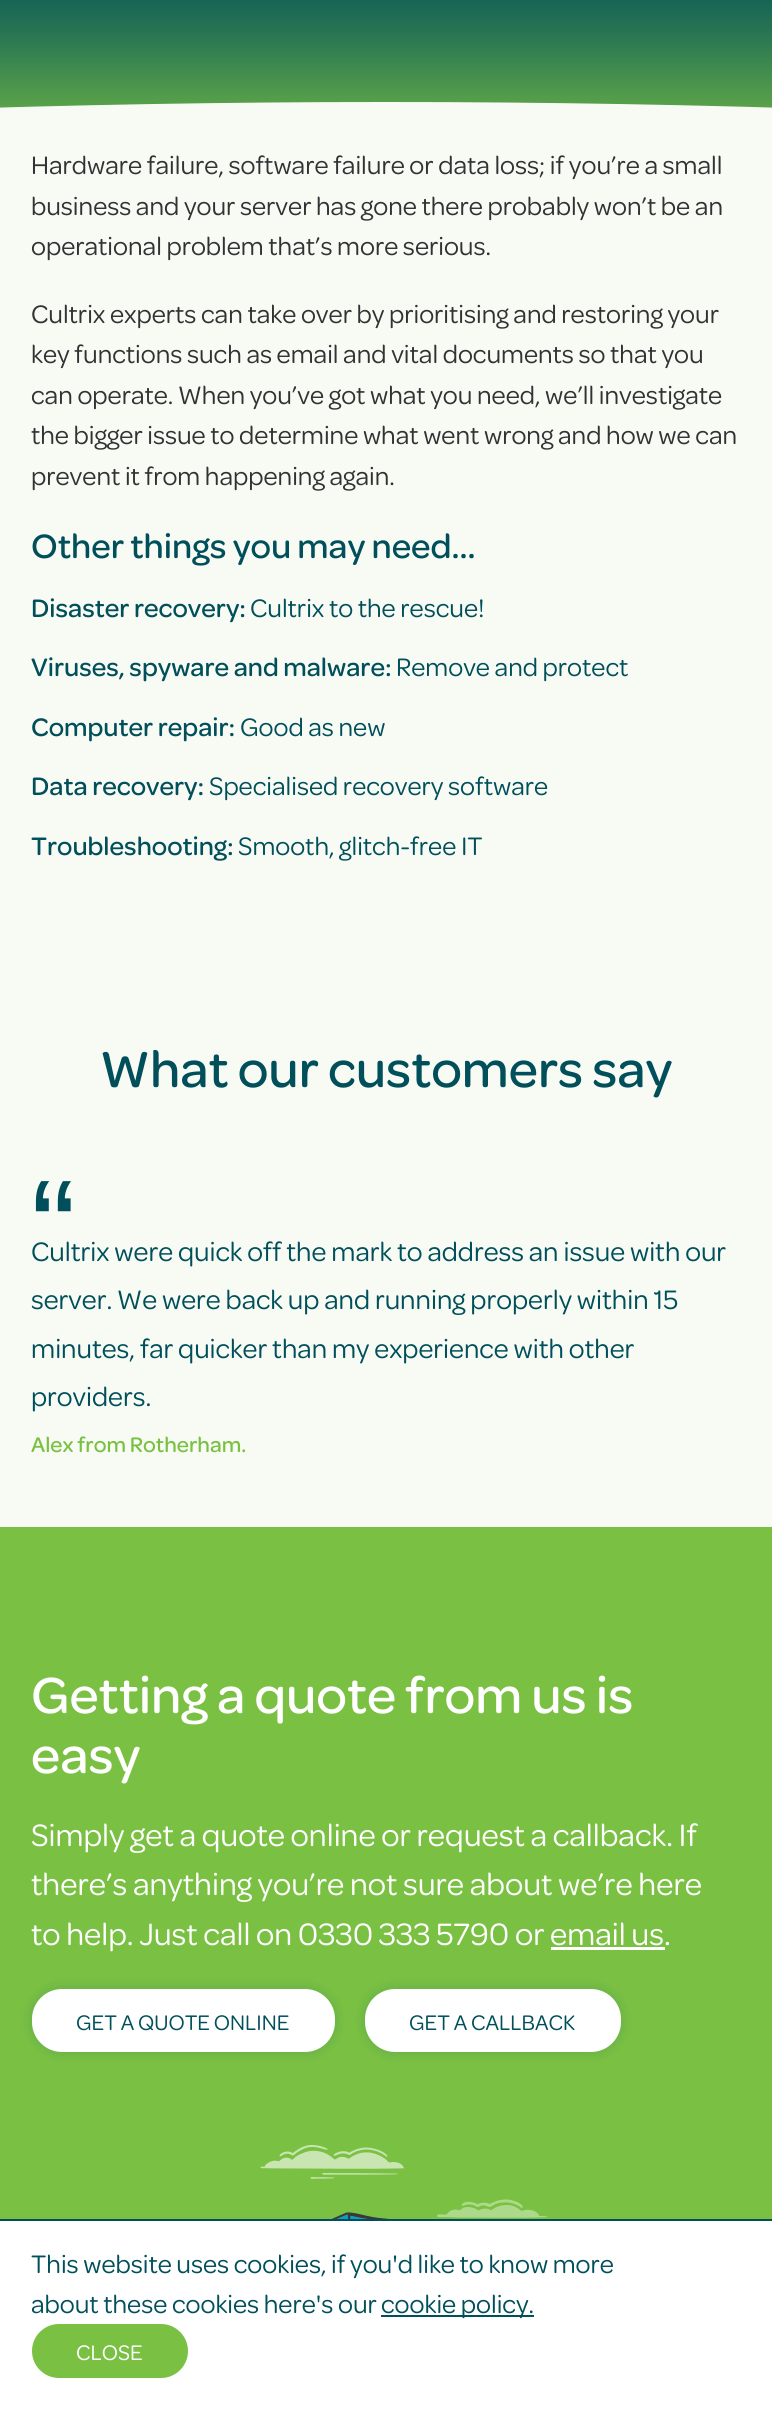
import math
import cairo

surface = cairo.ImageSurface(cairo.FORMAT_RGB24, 772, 2430)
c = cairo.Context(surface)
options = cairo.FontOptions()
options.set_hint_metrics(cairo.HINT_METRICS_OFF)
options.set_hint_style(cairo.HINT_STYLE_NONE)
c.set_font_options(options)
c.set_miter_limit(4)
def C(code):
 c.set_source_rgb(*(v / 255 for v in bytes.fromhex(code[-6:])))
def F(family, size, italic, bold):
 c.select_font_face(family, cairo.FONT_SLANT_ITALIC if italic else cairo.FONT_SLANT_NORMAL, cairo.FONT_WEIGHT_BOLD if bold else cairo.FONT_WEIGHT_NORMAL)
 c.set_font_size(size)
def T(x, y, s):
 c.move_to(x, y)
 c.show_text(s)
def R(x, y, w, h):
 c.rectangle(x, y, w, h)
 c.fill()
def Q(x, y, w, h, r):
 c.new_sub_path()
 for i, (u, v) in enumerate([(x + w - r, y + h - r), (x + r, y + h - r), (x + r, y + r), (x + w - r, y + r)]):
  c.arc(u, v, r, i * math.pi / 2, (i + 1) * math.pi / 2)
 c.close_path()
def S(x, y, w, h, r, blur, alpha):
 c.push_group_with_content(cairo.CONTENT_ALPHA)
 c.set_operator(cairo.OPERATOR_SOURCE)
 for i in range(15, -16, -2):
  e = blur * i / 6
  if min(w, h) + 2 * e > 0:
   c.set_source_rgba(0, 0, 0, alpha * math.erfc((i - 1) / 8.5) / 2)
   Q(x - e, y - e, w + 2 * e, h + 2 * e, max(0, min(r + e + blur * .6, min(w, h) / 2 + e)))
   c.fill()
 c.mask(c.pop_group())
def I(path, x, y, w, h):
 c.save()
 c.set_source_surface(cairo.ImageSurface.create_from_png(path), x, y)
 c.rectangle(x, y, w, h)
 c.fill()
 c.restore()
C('f8fbf4')
c.paint()
gradient = cairo.LinearGradient(386,158,386,-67)
gradient.add_color_stop_rgba(0,0.478,0.757,0.263,1)
gradient.add_color_stop_rgba(.57,0.149,0.451,0.325,1)
gradient.add_color_stop_rgba(.91,0,0.31,0.353,1)
c.set_source(gradient)
R(0,0,772,108)
C('f8fbf4')
c.new_path()
c.move_to(386,102)
c.curve_to(-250,102,-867,147,-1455,231)
c.line_to(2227,231)
c.curve_to(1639,147,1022,102,386,102)
c.close_path()
c.fill()
F('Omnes',27,0,0)
C('2e3333')
T(31,174,'Hardware failure, software failure or data loss; if you’re a small')
T(31,215,'business and your server has gone there probably won’t be an')
T(31,255,'operational problem that’s more serious.')
T(31,323,'Cultrix experts can take over by prioritising and restoring your')
T(31,363,'key functions such as email and vital documents so that you')
T(31,404,'can operate. When you’ve got what you need, we’ll investigate')
T(31,444,'the bigger issue to determine what went wrong and how we can')
T(31,485,'prevent it from happening again.')
F('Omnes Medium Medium',36,0,0)
C('004f5a')
T(31,558,'Other things you may need...')
F('Omnes Medium Medium',27,0,0)
T(31,617,'Disaster recovery:')
F('Omnes',27,0,0)
T(250,617,'Cultrix to the rescue!')
F('Omnes Medium Medium',27,0,0)
T(31,676,'Viruses, spyware and malware:')
F('Omnes',27,0,0)
T(396,676,'Remove and protect')
F('Omnes Medium Medium',27,0,0)
T(31,736,'Computer repair:')
F('Omnes',27,0,0)
T(240,736,'Good as new')
F('Omnes Medium Medium',27,0,0)
T(31,795,'Data recovery:')
F('Omnes',27,0,0)
T(209,795,'Specialised recovery software')
F('Omnes Medium Medium',27,0,0)
T(31,855,'Troubleshooting:')
F('Omnes',27,0,0)
T(238,855,'Smooth, glitch-free IT')
F('Omnes Medium Medium',54,0,0)
T(100,1087,'What our customers say')
F('Liberation Sans',135,0,0)
T(31,1274,'“')
F('Omnes',28.5,0,0)
T(31,1261,'Cultrix were quick off the mark to address an issue with our')
T(31,1309,'server. We were back up and running properly within 15')
T(31,1358,'minutes, far quicker than my experience with other')
T(31,1406,'providers.')
F('Omnes Medium Medium',22.5,0,0)
C('7ac143')
T(31,1452,'Alex from Rotherham.')
R(0,1527,772,692)
F('Omnes Medium Medium',54,0,0)
C('ffffff')
T(31,1713,'Getting a quote from us is')
T(31,1773,'easy')
F('Omnes',33,0,0)
T(31,1846,'Simply get a quote online or request a callback. If')
T(31,1895,'there’s anything you’re not sure about we’re here')
T(31,1945,'to help. Just call on 0330 333 5790 or email us.')
R(551,1947,114,3)
C('004f5a')
S(32,1989,303,63,30,7.5,.2)
C('ffffff')
Q(32,1989,303,63,30)
c.fill()
F('Omnes',22.5,0,0)
C('004f5a')
T(76,2030,'GET A QUOTE ONLINE')
C('004f5a')
S(365,1989,256,63,30,7.5,.2)
C('ffffff')
Q(365,1989,256,63,30)
c.fill()
C('004f5a')
T(409,2030,'GET A CALLBACK')
I('1.png',260,2145,288,74)
C('ffffff')
R(0,2221,772,209)
C('004f5a')
R(0,2219,772,2)
F('Omnes',27,0,0)
T(31,2273,'This website uses cookies, if you\'d like to know more')
T(31,2313,'about these cookies here\'s our')
R(381,2315,153,2)
T(381,2313,'cookie policy.')
C('7ac143')
Q(32,2324,156,54,27)
c.fill()
F('Omnes',22.5,0,0)
C('ffffff')
T(76,2360,'CLOSE')
surface.write_to_png('o.png')
